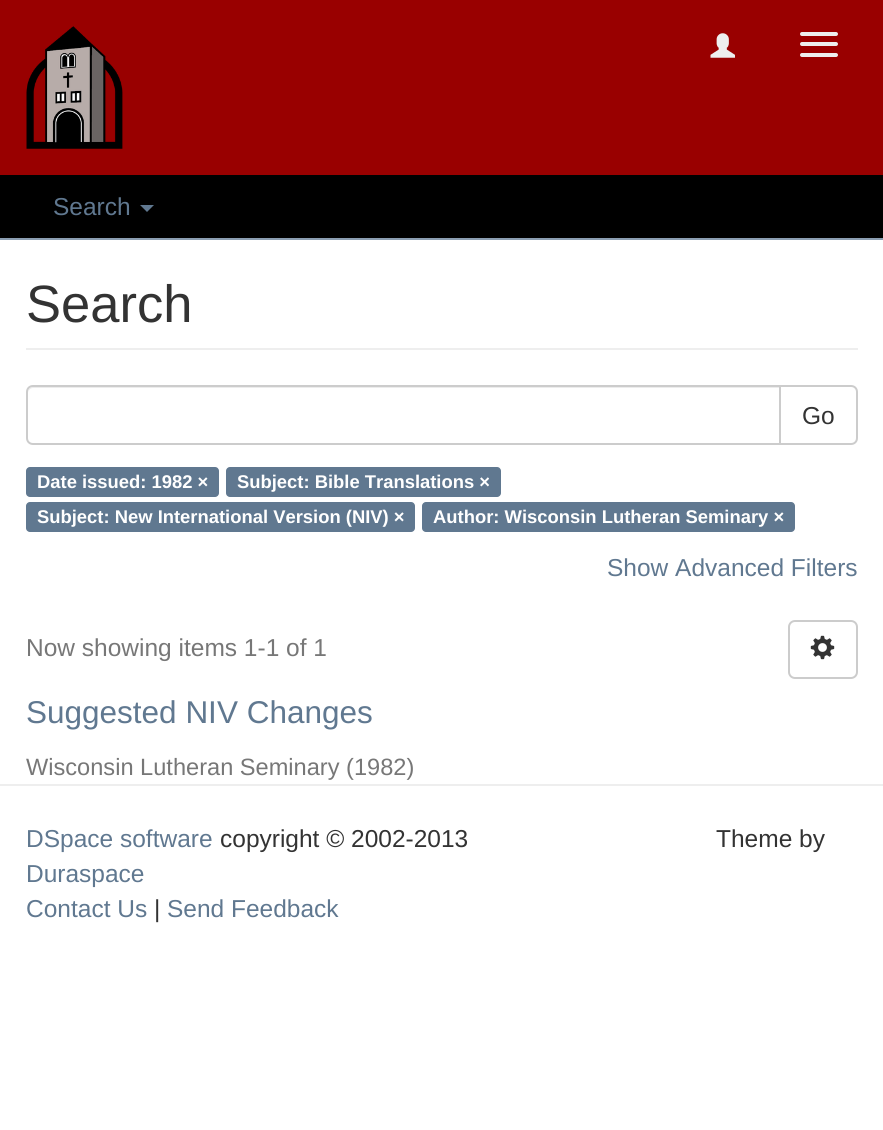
import math
import cairo

surface = cairo.ImageSurface(cairo.FORMAT_RGB24, 883, 1130)
c = cairo.Context(surface)
options = cairo.FontOptions()
options.set_hint_metrics(cairo.HINT_METRICS_OFF)
options.set_hint_style(cairo.HINT_STYLE_NONE)
c.set_font_options(options)
c.set_miter_limit(4)
def C(code):
 c.set_source_rgb(*(v / 255 for v in bytes.fromhex(code[-6:])))
def F(family, size, italic, bold):
 c.select_font_face(family, cairo.FONT_SLANT_ITALIC if italic else cairo.FONT_SLANT_NORMAL, cairo.FONT_WEIGHT_BOLD if bold else cairo.FONT_WEIGHT_NORMAL)
 c.set_font_size(size)
def T(x, y, s):
 c.move_to(x, y)
 c.show_text(s)
def R(x, y, w, h):
 c.rectangle(x, y, w, h)
 c.fill()
def Q(x, y, w, h, r):
 c.new_sub_path()
 for i, (u, v) in enumerate([(x + w - r, y + h - r), (x + r, y + h - r), (x + r, y + r), (x + w - r, y + r)]):
  c.arc(u, v, r, i * math.pi / 2, (i + 1) * math.pi / 2)
 c.close_path()
def I(path, x, y, w, h):
 c.save()
 c.set_source_surface(cairo.ImageSurface.create_from_png(path), x, y)
 c.rectangle(x, y, w, h)
 c.fill()
 c.restore()
C('ffffff')
c.paint()
C('990000')
R(0,0,883,175)
I('1.png',26,26,97,123)
I('2.png',710,33,25,25)
C('eeeeee')
Q(800,32,38,4,2)
c.fill()
Q(800,42,38,4,2)
c.fill()
Q(800,53,38,4,2)
c.fill()
C('000000')
R(0,175,883,63)
C('8b9eb2')
R(0,238,883,2)
F('Liberation Sans',24.5,0,0)
C('607890')
T(53,215,'Search')
c.new_path()
c.move_to(140,205)
c.line_to(154,205)
c.line_to(147,212)
c.close_path()
c.fill()
C('eeeeee')
R(26,348,832,2)
F('Liberation Sans',52.5,0,0)
C('333333')
T(26,322,'Search')
c.new_path()
c.move_to(780,386)
c.line_to(851,386)
c.curve_to(854.5,386,857,388.5,857,392)
c.line_to(857,438)
c.curve_to(857,441.5,854.5,444,851,444)
c.line_to(780,444)
c.close_path()
C('cccccc')
c.stroke()
C('ffffff')
c.new_path()
c.move_to(33,385)
c.line_to(781,385)
c.line_to(781,445)
c.line_to(33,445)
c.curve_to(29,445,26,442,26,438)
c.line_to(26,392)
c.curve_to(26,388,29,385,33,385)
c.close_path()
c.fill()
C('ececec')
c.new_path()
c.move_to(33,388)
c.line_to(779,388)
c.line_to(779,387)
c.line_to(33,387)
c.curve_to(29,387,28,391,28,394)
c.curve_to(28,391,30,388,33,388)
c.close_path()
c.fill()
c.new_path()
c.move_to(33,386)
c.line_to(780,386)
c.line_to(780,444)
c.line_to(33,444)
c.curve_to(29.5,444,27,441.5,27,438)
c.line_to(27,392)
c.curve_to(27,388.5,29.5,386,33,386)
c.close_path()
C('cccccc')
c.stroke()
F('Liberation Sans',24.5,0,0)
C('333333')
T(802,424,'Go')
C('607890')
Q(26,467,193,30,4)
c.fill()
F('Liberation Sans',18.4,0,1)
C('ffffff')
T(37,488,'Date issued: 1982 ×')
C('607890')
Q(226,467,275,30,4)
c.fill()
C('ffffff')
T(237,488,'Subject: Bible Translations ×')
C('607890')
Q(26,502,389,30,4)
c.fill()
C('ffffff')
T(37,523,'Subject: New International Version (NIV) ×')
C('607890')
Q(422,502,373,30,4)
c.fill()
C('ffffff')
T(433,523,'Author: Wisconsin Lutheran Seminary ×')
F('Liberation Sans',24.5,0,0)
C('607890')
T(607,576,'Show Advanced Filters')
C('777777')
T(26,656,'Now showing items 1-1 of 1')
Q(789,621,68,57,6)
C('cccccc')
c.stroke()
I('3.png',810,635,25,25)
F('Liberation Sans',31.5,0,0)
C('607890')
T(26,723,'Suggested NIV Changes')
F('Liberation Sans',23.6,0,0)
C('777777')
T(26,775,'Wisconsin Lutheran Seminary (1982)')
C('eeeeee')
R(0,784,883,2)
F('Liberation Sans',24.5,0,0)
C('607890')
T(26,847,'DSpace software')
C('333333')
T(220,847,'copyright © 2002-2013')
C('607890')
T(26,882,'Duraspace')
T(26,917,'Contact Us')
C('333333')
T(154,917,'|')
C('607890')
T(167,917,'Send Feedback')
C('333333')
T(716,847,'Theme by')
surface.write_to_png('o.png')
